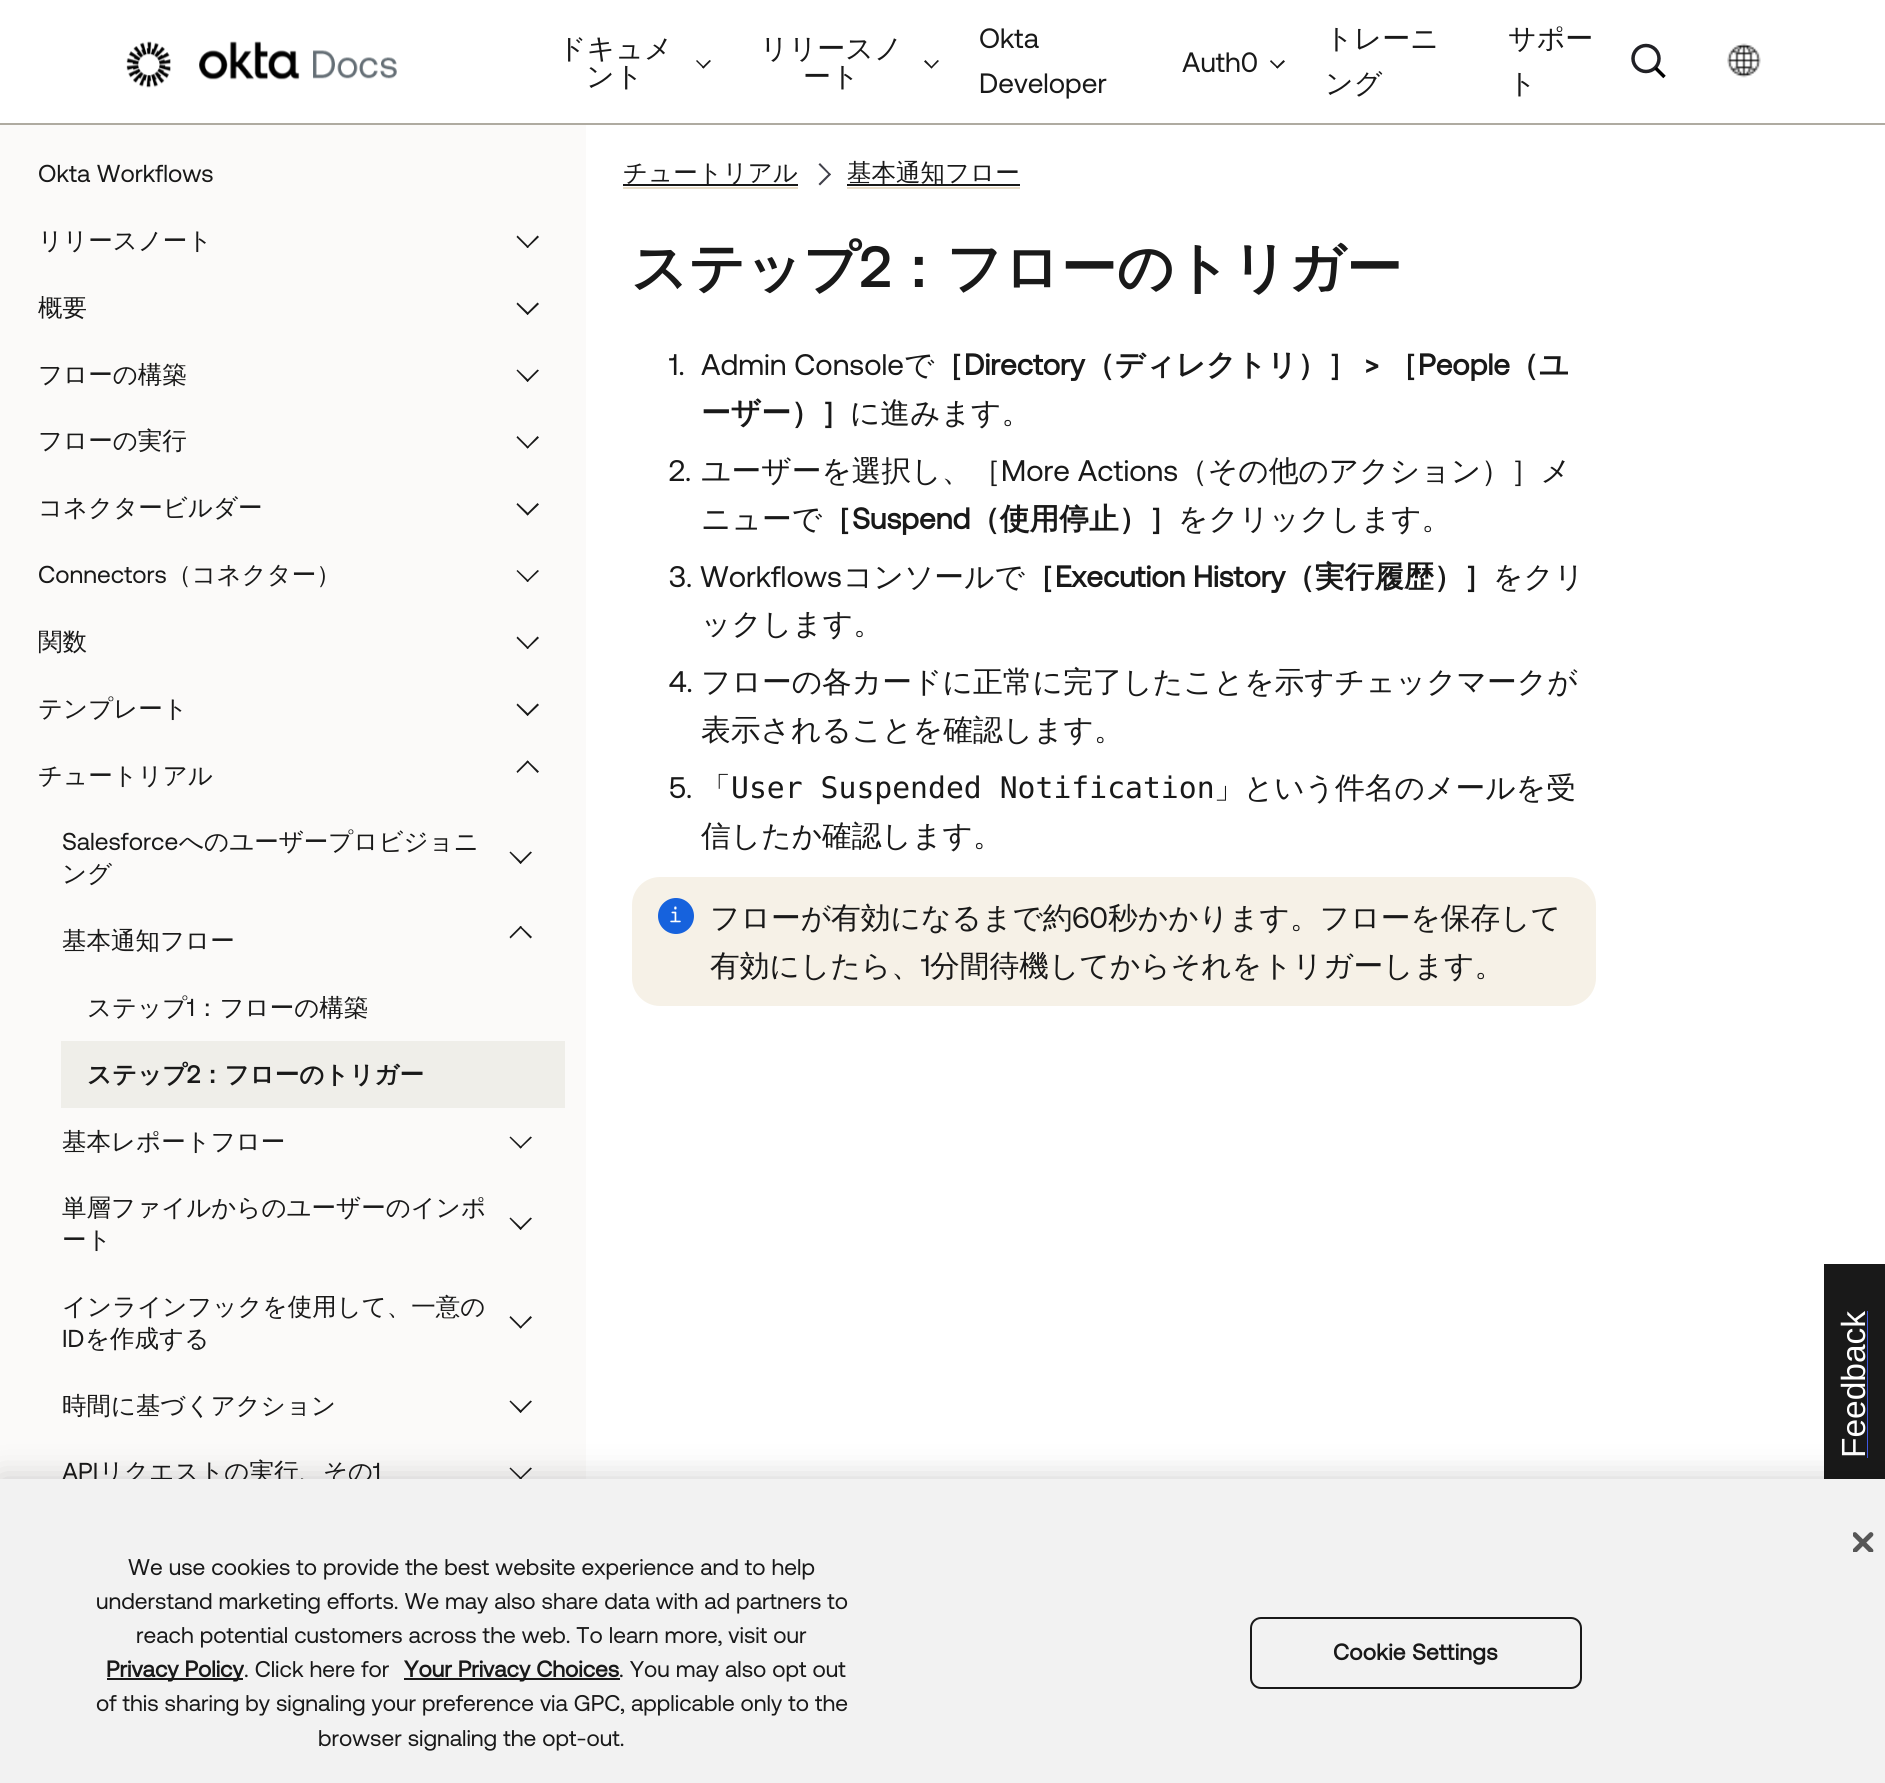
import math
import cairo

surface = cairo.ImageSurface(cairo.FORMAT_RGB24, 1885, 1783)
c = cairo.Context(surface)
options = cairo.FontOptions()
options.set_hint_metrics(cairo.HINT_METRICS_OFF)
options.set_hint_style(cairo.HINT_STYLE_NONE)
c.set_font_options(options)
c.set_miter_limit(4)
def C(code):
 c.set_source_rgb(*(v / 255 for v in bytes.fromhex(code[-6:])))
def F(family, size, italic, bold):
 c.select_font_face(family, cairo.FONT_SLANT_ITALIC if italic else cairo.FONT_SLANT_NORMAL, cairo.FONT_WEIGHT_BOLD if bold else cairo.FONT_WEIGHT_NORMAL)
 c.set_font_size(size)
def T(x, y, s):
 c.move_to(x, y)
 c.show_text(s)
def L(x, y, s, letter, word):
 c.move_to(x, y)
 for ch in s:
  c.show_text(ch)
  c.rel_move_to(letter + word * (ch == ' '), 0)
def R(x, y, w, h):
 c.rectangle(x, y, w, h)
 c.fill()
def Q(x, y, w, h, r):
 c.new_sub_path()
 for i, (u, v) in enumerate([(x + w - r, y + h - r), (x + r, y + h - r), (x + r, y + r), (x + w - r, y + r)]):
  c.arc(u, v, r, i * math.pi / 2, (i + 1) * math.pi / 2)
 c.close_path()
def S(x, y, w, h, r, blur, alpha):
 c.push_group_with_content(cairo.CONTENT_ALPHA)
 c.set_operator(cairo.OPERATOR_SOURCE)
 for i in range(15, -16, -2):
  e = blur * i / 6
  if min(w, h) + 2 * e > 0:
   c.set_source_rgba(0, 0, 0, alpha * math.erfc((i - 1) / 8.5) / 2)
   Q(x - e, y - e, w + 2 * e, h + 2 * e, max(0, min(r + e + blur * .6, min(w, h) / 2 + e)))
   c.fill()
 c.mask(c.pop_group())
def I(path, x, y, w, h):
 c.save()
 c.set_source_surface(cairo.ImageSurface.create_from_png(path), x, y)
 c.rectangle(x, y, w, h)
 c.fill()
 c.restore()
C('ffffff')
c.paint()
C('fbfaf9')
R(0,125,586,1354)
F('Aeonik',24.5,0,0)
C('191919')
T(38,182,'Okta Workflows')
F('WenQuanYi Zen Hei Medium',24.5,0,0)
T(38,249,'リリースノート')
c.new_path()
c.move_to(537.5,235.5)
c.line_to(539,237)
c.line_to(527.5,248)
c.line_to(526.5,247)
c.close_path()
c.fill()
c.new_path()
c.move_to(517.5,235.5)
c.line_to(529,247)
c.line_to(527.5,248)
c.line_to(516.5,237)
c.close_path()
c.fill()
T(38,316,'概要')
c.new_path()
c.move_to(537.5,302.5)
c.line_to(539,304)
c.line_to(527.5,315)
c.line_to(526.5,313.5)
c.close_path()
c.fill()
c.new_path()
c.move_to(517.5,302.5)
c.line_to(529,313.5)
c.line_to(527.5,315)
c.line_to(516.5,304)
c.close_path()
c.fill()
T(38,383,'フローの構築')
c.new_path()
c.move_to(537.5,369.5)
c.line_to(539,370.5)
c.line_to(527.5,382)
c.line_to(526.5,380.5)
c.close_path()
c.fill()
c.new_path()
c.move_to(517.5,369.5)
c.line_to(529,380.5)
c.line_to(527.5,382)
c.line_to(516.5,370.5)
c.close_path()
c.fill()
T(38,449,'フローの実行')
c.new_path()
c.move_to(537.5,436)
c.line_to(539,437.5)
c.line_to(527.5,448.5)
c.line_to(526.5,447.5)
c.close_path()
c.fill()
c.new_path()
c.move_to(517.5,436)
c.line_to(529,447.5)
c.line_to(527.5,448.5)
c.line_to(516.5,437.5)
c.close_path()
c.fill()
T(38,516,'コネクタービルダー')
c.new_path()
c.move_to(537.5,503)
c.line_to(539,504.5)
c.line_to(527.5,515.5)
c.line_to(526.5,514)
c.close_path()
c.fill()
c.new_path()
c.move_to(517.5,503)
c.line_to(529,514)
c.line_to(527.5,515.5)
c.line_to(516.5,504.5)
c.close_path()
c.fill()
F('Aeonik',24.5,0,0)
T(38,583,'Connectors')
F('WenQuanYi Zen Hei Medium',24.5,0,0)
T(167,583,'（コネクター）')
c.new_path()
c.move_to(537.5,570)
c.line_to(539,571)
c.line_to(527.5,582)
c.line_to(526.5,581)
c.close_path()
c.fill()
c.new_path()
c.move_to(517.5,570)
c.line_to(529,581)
c.line_to(527.5,582)
c.line_to(516.5,571)
c.close_path()
c.fill()
T(38,650,'関数')
c.new_path()
c.move_to(537.5,636.5)
c.line_to(539,638)
c.line_to(527.5,649)
c.line_to(526.5,648)
c.close_path()
c.fill()
c.new_path()
c.move_to(517.5,636.5)
c.line_to(529,648)
c.line_to(527.5,649)
c.line_to(516.5,638)
c.close_path()
c.fill()
T(38,717,'テンプレート')
c.new_path()
c.move_to(537.5,703.5)
c.line_to(539,705)
c.line_to(527.5,716)
c.line_to(526.5,714.5)
c.close_path()
c.fill()
c.new_path()
c.move_to(517.5,703.5)
c.line_to(529,714.5)
c.line_to(527.5,716)
c.line_to(516.5,705)
c.close_path()
c.fill()
T(38,784,'チュートリアル')
c.new_path()
c.move_to(517.5,773)
c.line_to(516.5,771.5)
c.line_to(527.5,760.5)
c.line_to(529,761.5)
c.close_path()
c.fill()
c.new_path()
c.move_to(537.5,773)
c.line_to(526.5,761.5)
c.line_to(527.5,760.5)
c.line_to(539,771.5)
c.close_path()
c.fill()
F('Aeonik',24.5,0,0)
T(62,850,'Salesforce')
F('WenQuanYi Zen Hei Medium',24.5,0,0)
T(179,850,'へのユーザープロビジョニ')
c.new_path()
c.move_to(530.5,851.5)
c.line_to(532,852.5)
c.line_to(520.5,864)
c.line_to(519.5,862.5)
c.close_path()
c.fill()
c.new_path()
c.move_to(510.5,851.5)
c.line_to(522,862.5)
c.line_to(520.5,864)
c.line_to(509.5,852.5)
c.close_path()
c.fill()
T(62,882,'ング')
T(62,949,'基本通知フロー')
c.new_path()
c.move_to(510.5,938.5)
c.line_to(509.5,937)
c.line_to(520.5,926)
c.line_to(522,927)
c.close_path()
c.fill()
c.new_path()
c.move_to(530.5,938.5)
c.line_to(519.5,927)
c.line_to(520.5,926)
c.line_to(532,937)
c.close_path()
c.fill()
T(87,1016,'ステップ')
F('Aeonik',24.5,0,0)
T(187,1016,'1')
F('WenQuanYi Zen Hei Medium',24.5,0,0)
T(195,1016,'：フローの構築')
C('efeee9')
R(61,1041,504,67)
F('WenQuanYi Zen Hei',24.5,0,1)
C('191919')
T(87,1083,'ステップ')
F('Aeonik',24.5,0,1)
T(187,1083,'2')
F('WenQuanYi Zen Hei',24.5,0,1)
T(200,1083,'：フローのトリガー')
F('WenQuanYi Zen Hei Medium',24.5,0,0)
T(62,1150,'基本レポートフロー')
c.new_path()
c.move_to(530.5,1136.5)
c.line_to(532,1137.5)
c.line_to(520.5,1148.5)
c.line_to(519.5,1147.5)
c.close_path()
c.fill()
c.new_path()
c.move_to(510.5,1136.5)
c.line_to(522,1147.5)
c.line_to(520.5,1148.5)
c.line_to(509.5,1137.5)
c.close_path()
c.fill()
T(62,1216,'単層ファイルからのユーザーのインポ')
c.new_path()
c.move_to(530.5,1217.5)
c.line_to(532,1218.5)
c.line_to(520.5,1230)
c.line_to(519.5,1228.5)
c.close_path()
c.fill()
c.new_path()
c.move_to(510.5,1217.5)
c.line_to(522,1228.5)
c.line_to(520.5,1230)
c.line_to(509.5,1218.5)
c.close_path()
c.fill()
T(62,1248,'ート')
T(62,1315,'インラインフックを使用して、一意の')
c.new_path()
c.move_to(530.5,1316)
c.line_to(532,1317.5)
c.line_to(520.5,1328.5)
c.line_to(519.5,1327.5)
c.close_path()
c.fill()
c.new_path()
c.move_to(510.5,1316)
c.line_to(522,1327.5)
c.line_to(520.5,1328.5)
c.line_to(509.5,1317.5)
c.close_path()
c.fill()
F('Aeonik',24.5,0,0)
T(62,1347,'ID')
F('WenQuanYi Zen Hei Medium',24.5,0,0)
T(85,1347,'を作成する')
T(62,1414,'時間に基づくアクション')
c.new_path()
c.move_to(530.5,1400.5)
c.line_to(532,1401.5)
c.line_to(520.5,1413)
c.line_to(519.5,1411.5)
c.close_path()
c.fill()
c.new_path()
c.move_to(510.5,1400.5)
c.line_to(522,1411.5)
c.line_to(520.5,1413)
c.line_to(509.5,1401.5)
c.close_path()
c.fill()
F('Aeonik',24.5,0,0)
T(62,1480,'API')
F('WenQuanYi Zen Hei Medium',24.5,0,0)
T(99,1480,'リクエストの実行、その')
F('Aeonik',24.5,0,0)
T(373,1480,'1')
c.new_path()
c.move_to(530.5,1467.5)
c.line_to(532,1468.5)
c.line_to(520.5,1479.5)
c.line_to(519.5,1478.5)
c.close_path()
c.fill()
c.new_path()
c.move_to(510.5,1467.5)
c.line_to(522,1478.5)
c.line_to(520.5,1479.5)
c.line_to(509.5,1468.5)
c.close_path()
c.fill()
C('afaba1')
R(0,123,1885,2)
I('1.png',126,41,271,47)
F('WenQuanYi Zen Hei Medium',28,0,0)
C('191919')
T(558,58,'ドキュメ')
T(586,86,'ント')
c.new_path()
c.move_to(709.5,60)
c.line_to(711,61)
c.line_to(703.5,68.5)
c.line_to(702,67.5)
c.close_path()
c.fill()
c.new_path()
c.move_to(697,60)
c.line_to(704.5,67.5)
c.line_to(703.5,68.5)
c.line_to(696,61)
c.close_path()
c.fill()
T(760,58,'リリースノ')
T(803,86,'ート')
c.new_path()
c.move_to(937.5,60)
c.line_to(939,61)
c.line_to(931.5,68.5)
c.line_to(930.5,67.5)
c.close_path()
c.fill()
c.new_path()
c.move_to(925.5,60)
c.line_to(932.5,67.5)
c.line_to(931.5,68.5)
c.line_to(924,61.5)
c.close_path()
c.fill()
F('Aeonik',28,0,0)
T(979,48,'Okta')
T(979,93,'Developer')
T(1182,72,'Auth0')
c.new_path()
c.move_to(1283.5,60)
c.line_to(1285,61.5)
c.line_to(1277.5,68.5)
c.line_to(1276,67.5)
c.close_path()
c.fill()
c.new_path()
c.move_to(1271,60)
c.line_to(1278.5,67.5)
c.line_to(1277.5,68.5)
c.line_to(1270,61.5)
c.close_path()
c.fill()
F('WenQuanYi Zen Hei Medium',28,0,0)
T(1325,48,'トレーニ')
T(1325,93,'ング')
T(1508,48,'サポー')
T(1508,93,'ト')
c.new_path()
c.arc(1646,58.5,13,0,2 * math.pi)
C('212126')
c.set_line_width(3.5)
c.stroke()
c.new_path()
c.move_to(1664.5,77)
c.line_to(1655.5,68)
C('000000')
c.stroke()
I('2.png',1727,43,34,35)
C('e8dcc7')
R(623,187,175,2)
C('191919')
R(623,184,175,2)
F('WenQuanYi Zen Hei Medium',24.5,0,0)
T(623,181,'チュートリアル')
C('41414b')
c.new_path()
c.move_to(818.5,164.5)
c.line_to(820,163)
c.line_to(831,174.5)
c.line_to(829.5,175.5)
c.close_path()
c.fill()
c.new_path()
c.move_to(818.5,184)
c.line_to(829.5,173)
c.line_to(831,174.5)
c.line_to(820,185.5)
c.close_path()
c.fill()
C('e8dcc7')
R(847,187,173,2)
C('191919')
T(847,181,'基本通知フロー')
R(847,184,173,2)
F('WenQuanYi Zen Hei',56,0,1)
T(631,287,'ステップ')
F('Aeonik',56,0,1)
T(860,287,'2')
F('WenQuanYi Zen Hei',56,0,1)
T(890,287,'：フローのトリガー')
F('Aeonik',29.75,0,0)
T(669,375,'1.')
T(701,375,'Admin Console')
F('WenQuanYi Zen Hei Medium',29.75,0,0)
T(904,375,'で')
F('WenQuanYi Zen Hei',29.75,0,1)
T(934,375,'［')
F('Aeonik',29.75,0,1)
T(964,375,'Directory')
F('WenQuanYi Zen Hei',29.75,0,1)
T(1085,375,'（ディレクトリ）］')
F('Aeonik',29.75,0,1)
T(1364,375,'>')
F('WenQuanYi Zen Hei',29.75,0,1)
T(1388,375,'［')
F('Aeonik',29.75,0,1)
T(1418,375,'People')
F('WenQuanYi Zen Hei',29.75,0,1)
T(1509,375,'（ユ')
T(701,423,'ーザー）］')
F('WenQuanYi Zen Hei Medium',29.75,0,0)
T(850,423,'に進みます。')
F('Aeonik',29.75,0,0)
T(669,481,'2.')
F('WenQuanYi Zen Hei Medium',29.75,0,0)
T(701,481,'ユーザーを選択し、［')
F('Aeonik',29.75,0,0)
T(1001,481,'More Actions')
F('WenQuanYi Zen Hei Medium',29.75,0,0)
T(1178,481,'（その他のアクション）］メ')
T(701,529,'ニューで')
F('WenQuanYi Zen Hei',29.75,0,1)
T(822,529,'［')
F('Aeonik',29.75,0,1)
T(852,529,'Suspend')
F('WenQuanYi Zen Hei',29.75,0,1)
T(970,529,'（使用停止）］')
F('WenQuanYi Zen Hei Medium',29.75,0,0)
T(1178,529,'をクリックします。')
F('Aeonik',29.75,0,0)
T(669,587,'3. Workflows')
F('WenQuanYi Zen Hei Medium',29.75,0,0)
T(843,587,'コンソールで')
F('WenQuanYi Zen Hei',29.75,0,1)
T(1025,587,'［')
F('Aeonik',29.75,0,1)
T(1055,587,'Execution History')
F('WenQuanYi Zen Hei',29.75,0,1)
T(1285,587,'（実行履歴）］')
F('WenQuanYi Zen Hei Medium',29.75,0,0)
T(1493,587,'をクリ')
T(701,634,'ックします。')
F('Aeonik',29.75,0,0)
T(669,692,'4.')
F('WenQuanYi Zen Hei Medium',29.75,0,0)
T(701,692,'フローの各カードに正常に完了したことを示すチェックマークが')
T(701,740,'表示されることを確認します。')
F('Aeonik',29.75,0,0)
T(669,798,'5.')
F('WenQuanYi Zen Hei Medium',29.75,0,0)
T(701,798,'「')
F('DejaVu Sans Mono',29.75,0,0)
T(731,798,'User Suspended Notification')
F('WenQuanYi Zen Hei Medium',29.75,0,0)
T(1214,798,'」という件名のメールを受')
T(701,846,'信したか確認します。')
C('f6f1e7')
Q(632,877,964,129,28)
c.fill()
I('3.png',658,898,36,36)
C('191919')
T(710,928,'フローが有効になるまで約')
F('Aeonik',29.75,0,0)
T(1072,928,'60')
F('WenQuanYi Zen Hei Medium',29.75,0,0)
T(1108,928,'秒かかります。フローを保存して')
T(710,976,'有効にしたら、')
F('Aeonik',29.75,0,0)
T(921,976,'1')
F('WenQuanYi Zen Hei Medium',29.75,0,0)
T(930,976,'分間待機してからそれをトリガーします。')
R(1824,1264,61,215)
F('Liberation Sans',33.5,0,0)
C('ffffff')
c.save()
c.translate(1865,1458)
c.rotate(-90 * math.pi / 180)
T(0,0,'Feedback')
c.restore()
C('3f59e4')
R(1867,1311,1,147)
C('000000')
S(0,1479,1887,304,0,16,.2)
C('f2f2f2')
R(0,1479,1885,304)
I('4.png',1853,1532,21,20)
F('Aeonik',22.75,0,0)
C('191919')
T(128,1575,'We use cookies to provide the best website experience and to help')
T(96,1609,'understand marketing efforts. We may also share data with ad partners to')
T(136,1643,'reach potential customers across the web. To learn more, visit our')
R(107,1678,136,2)
F('Aeonik',22.75,0,1)
T(106,1677,'Privacy Policy')
F('Aeonik',22.75,0,0)
T(244,1677,'. Click here for')
R(404,1678,216,2)
F('Aeonik',22.75,0,1)
T(404,1677,'Your Privacy Choices')
F('Aeonik',22.75,0,0)
T(619,1677,'. You may also opt out')
T(96,1711,'of this sharing by signaling your preference via GPC, applicable only to the')
T(318,1746,'browser signaling the opt-out.')
Q(1251,1618,330,70,10)
c.set_line_width(2)
c.stroke()
F('Aeonik',22.75,0,1)
L(1333,1660,'Cookie Settings',.25,0)
surface.write_to_png('o.png')
